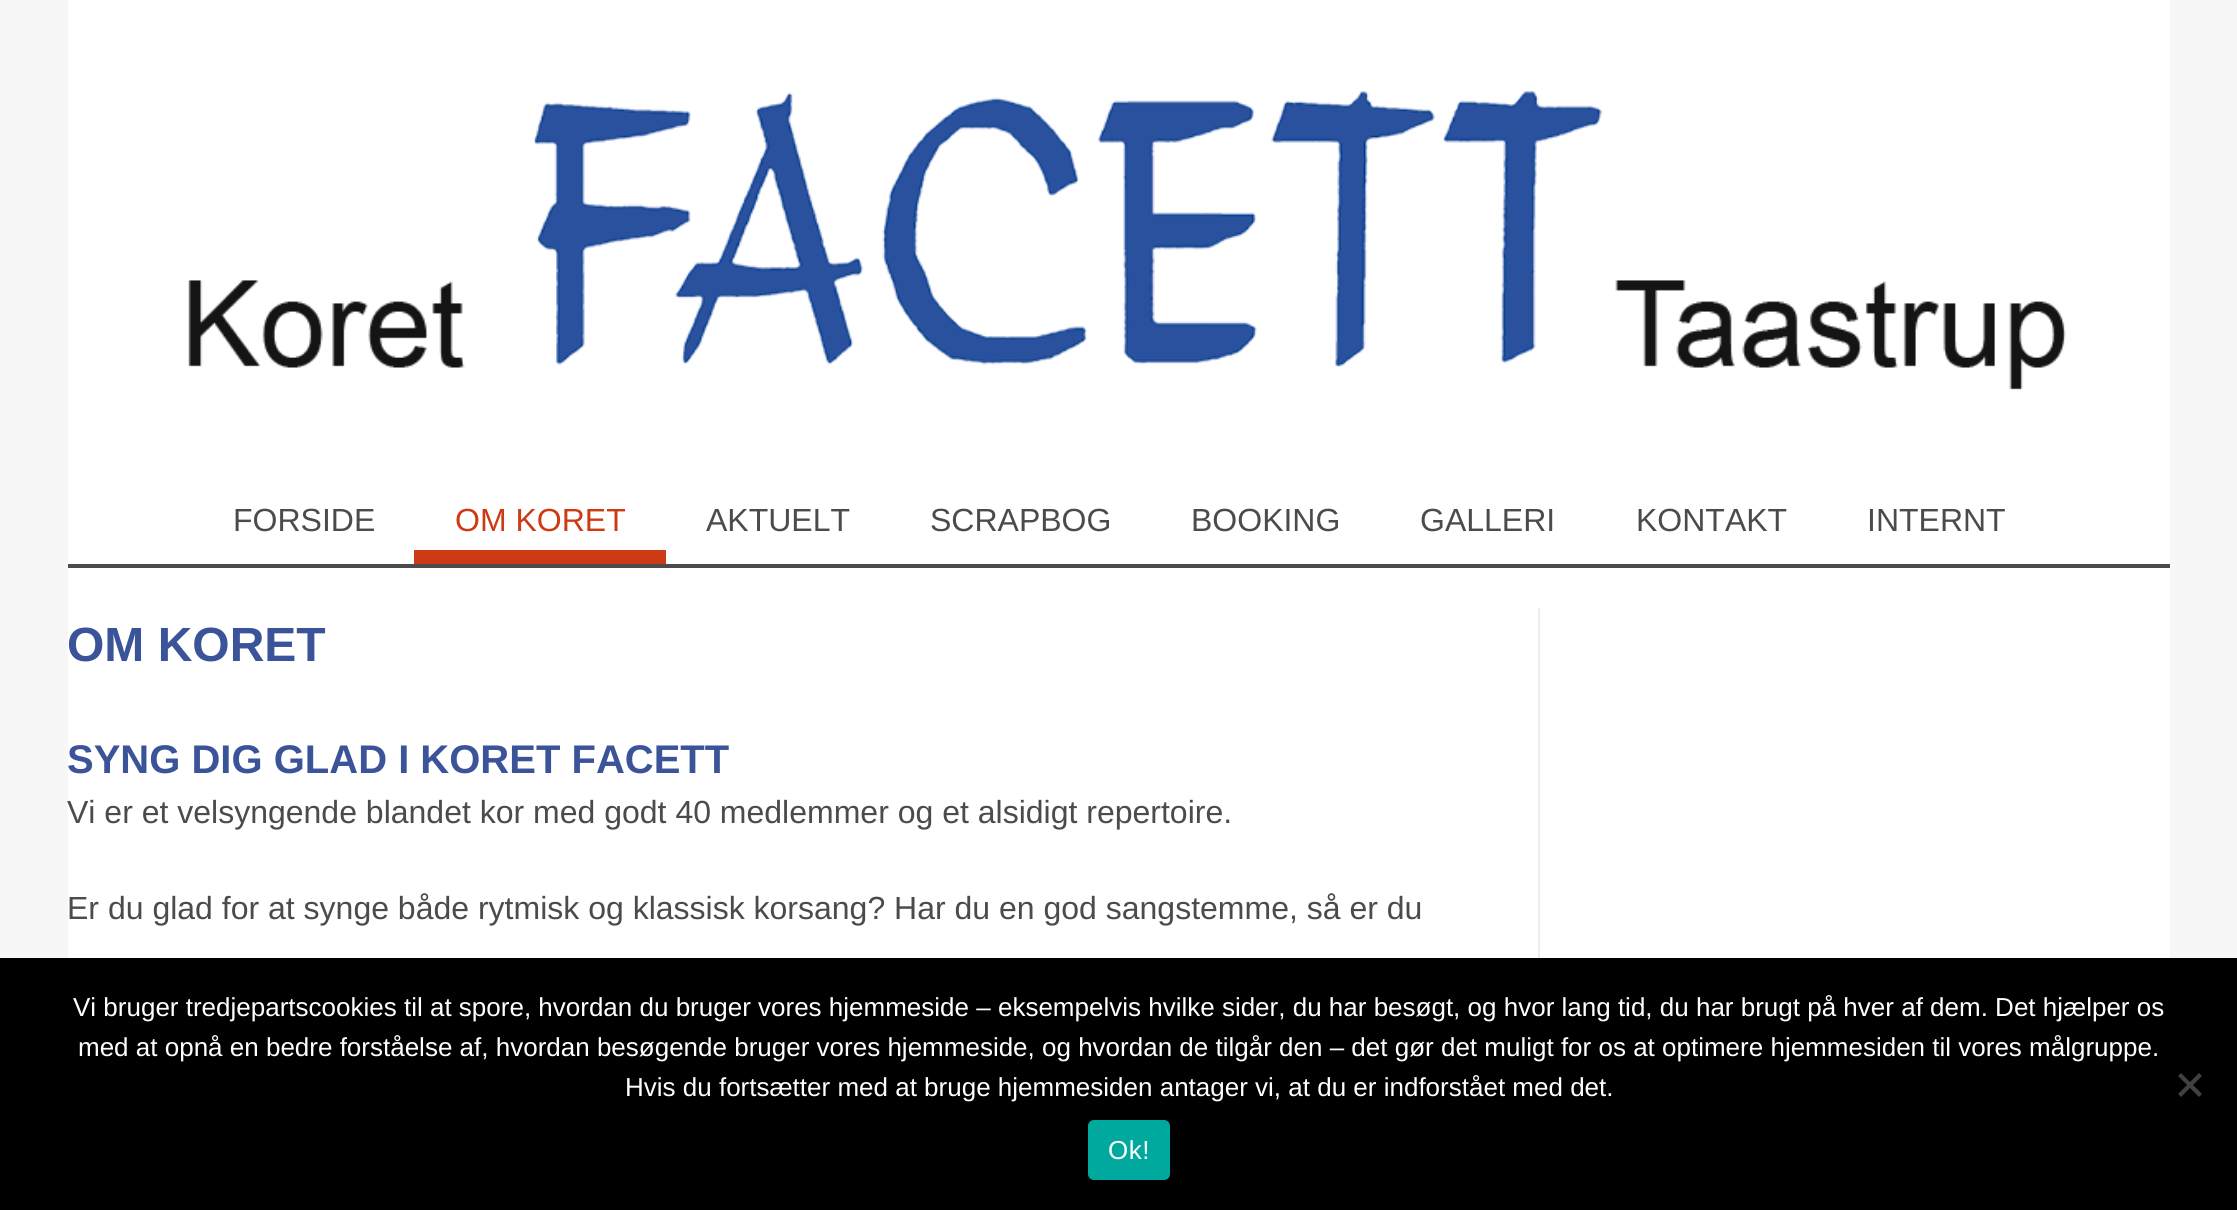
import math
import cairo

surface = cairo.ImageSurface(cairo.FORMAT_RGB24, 2237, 1210)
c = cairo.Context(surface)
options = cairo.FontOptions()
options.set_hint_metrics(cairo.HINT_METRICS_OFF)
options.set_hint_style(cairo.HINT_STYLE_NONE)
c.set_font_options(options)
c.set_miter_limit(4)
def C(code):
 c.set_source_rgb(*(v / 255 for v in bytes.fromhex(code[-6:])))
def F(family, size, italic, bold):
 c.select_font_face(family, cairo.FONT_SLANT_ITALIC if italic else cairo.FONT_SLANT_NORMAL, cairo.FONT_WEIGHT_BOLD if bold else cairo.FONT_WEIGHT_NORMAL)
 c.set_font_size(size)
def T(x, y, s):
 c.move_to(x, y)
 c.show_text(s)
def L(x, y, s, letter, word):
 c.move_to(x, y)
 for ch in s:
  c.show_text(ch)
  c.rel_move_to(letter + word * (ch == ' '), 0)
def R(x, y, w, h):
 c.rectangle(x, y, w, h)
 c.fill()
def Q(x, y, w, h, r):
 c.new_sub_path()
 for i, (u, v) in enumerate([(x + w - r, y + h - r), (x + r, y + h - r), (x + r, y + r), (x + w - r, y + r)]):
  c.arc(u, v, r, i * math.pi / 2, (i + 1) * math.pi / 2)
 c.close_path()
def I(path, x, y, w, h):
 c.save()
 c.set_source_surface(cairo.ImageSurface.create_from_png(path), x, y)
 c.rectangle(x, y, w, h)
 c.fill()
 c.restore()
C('f7f7f7')
c.paint()
C('ffffff')
R(68,0,2102,958)
C('4b4b4d')
R(68,564,2102,4)
I('1.png',188,91,1878,299)
F('Liberation Sans',32,0,0)
T(233,531,'FORSIDE')
C('cc3b14')
R(414,550,252,14)
T(455,531,'OM KORET')
C('4b4b4d')
T(706,531,'AKTUELT')
T(930,531,'SCRAPBOG')
T(1191,531,'BOOKING')
T(1420,531,'GALLERI')
T(1636,531,'KONTAKT')
T(1867,531,'INTERNT')
C('eeeeee')
R(1538,608,2,350)
F('Liberation Sans',48,0,1)
C('3b5399')
T(67,661,'OM KORET')
F('Liberation Sans',40,0,1)
T(67,773,'SYNG DIG GLAD I KORET FACETT')
F('Liberation Sans',32,0,0)
C('4b4b4d')
T(67,823,'Vi er et velsyngende blandet kor med godt 40 medlemmer og et alsidigt repertoire.')
T(67,919,'Er du glad for at synge både rytmisk og klassisk korsang? Har du en god sangstemme, så er du')
C('000000')
R(0,958,2237,252)
F('Liberation Sans',26,0,0)
C('ffffff')
T(73,1016,'Vi bruger tredjepartscookies til at spore, hvordan du bruger vores hjemmeside – eksempelvis hvilke sider, du har besøgt, og hvor lang tid, du har brugt på hver af dem. Det hjælper os')
T(78,1056,'med at opnå en bedre forståelse af, hvordan besøgende bruger vores hjemmeside, og hvordan de tilgår den – det gør det muligt for os at optimere hjemmesiden til vores målgruppe.')
T(625,1096,'Hvis du fortsætter med at bruge hjemmesiden antager vi, at du er indforstået med det.')
C('404040')
c.new_path()
c.move_to(2199,1073)
c.line_to(2202,1076)
c.line_to(2181,1097)
c.line_to(2178,1094)
c.close_path()
c.fill()
c.new_path()
c.move_to(2178,1076)
c.line_to(2181,1073)
c.line_to(2202,1094)
c.line_to(2199,1097)
c.close_path()
c.fill()
C('00a99d')
Q(1088,1120,82,60,6)
c.fill()
C('ffffff')
L(1108,1159,'Ok!',.5,0)
surface.write_to_png('o.png')
